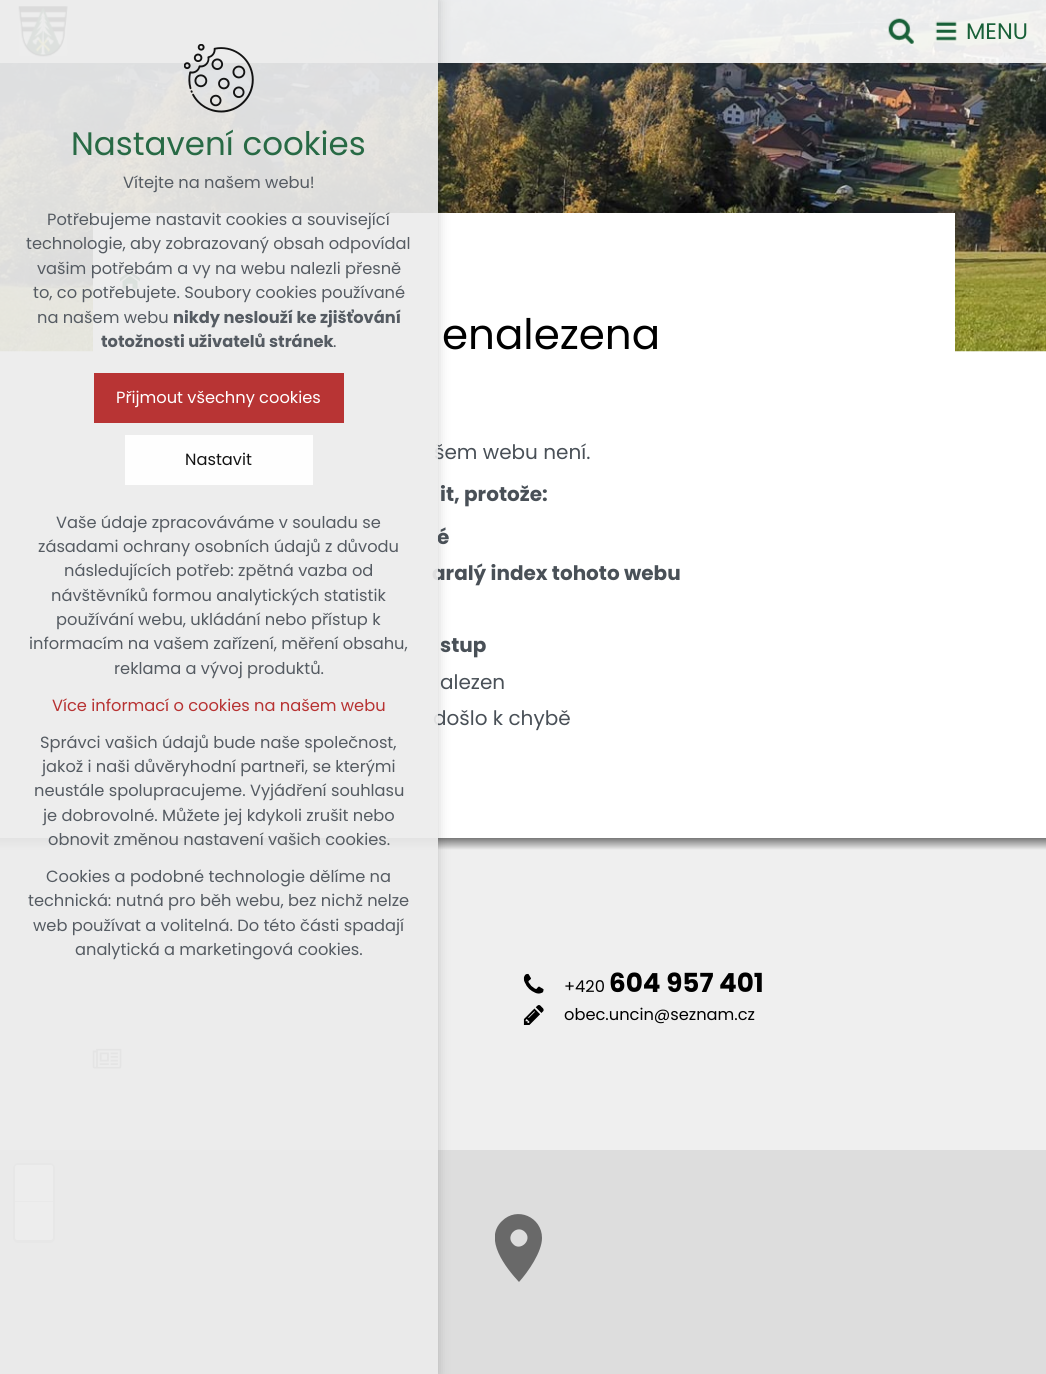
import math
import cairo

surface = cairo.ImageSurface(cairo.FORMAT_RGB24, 1046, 1374)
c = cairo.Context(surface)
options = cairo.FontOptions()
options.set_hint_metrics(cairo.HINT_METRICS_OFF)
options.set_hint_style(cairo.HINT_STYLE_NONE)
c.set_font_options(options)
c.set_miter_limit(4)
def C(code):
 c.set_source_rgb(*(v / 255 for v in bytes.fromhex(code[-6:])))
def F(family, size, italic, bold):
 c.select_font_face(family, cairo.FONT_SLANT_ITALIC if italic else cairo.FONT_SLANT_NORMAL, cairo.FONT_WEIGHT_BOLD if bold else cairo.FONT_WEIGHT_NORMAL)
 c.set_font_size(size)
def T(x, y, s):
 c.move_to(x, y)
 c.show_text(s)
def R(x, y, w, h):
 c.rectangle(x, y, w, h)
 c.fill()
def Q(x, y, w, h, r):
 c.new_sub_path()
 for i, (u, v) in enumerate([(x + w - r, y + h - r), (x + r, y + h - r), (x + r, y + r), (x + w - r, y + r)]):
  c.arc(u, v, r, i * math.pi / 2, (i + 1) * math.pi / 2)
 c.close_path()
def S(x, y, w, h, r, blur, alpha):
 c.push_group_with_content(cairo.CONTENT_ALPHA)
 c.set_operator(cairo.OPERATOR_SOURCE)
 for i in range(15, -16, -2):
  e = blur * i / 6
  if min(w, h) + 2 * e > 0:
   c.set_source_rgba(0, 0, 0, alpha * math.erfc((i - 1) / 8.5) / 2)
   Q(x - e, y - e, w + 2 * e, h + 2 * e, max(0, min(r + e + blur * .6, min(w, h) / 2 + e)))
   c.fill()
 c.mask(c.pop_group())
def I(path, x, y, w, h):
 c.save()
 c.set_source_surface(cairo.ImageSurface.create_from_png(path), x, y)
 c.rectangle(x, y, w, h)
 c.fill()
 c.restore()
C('ffffff')
c.paint()
I('5.png',0,0,1046,352)
c.save()
c.set_fill_rule(cairo.FILL_RULE_EVEN_ODD)
c.new_path()
c.move_to(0,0)
c.line_to(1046,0)
c.line_to(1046,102)
c.line_to(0,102)
c.close_path()
c.move_to(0,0)
c.line_to(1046,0)
c.line_to(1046,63)
c.line_to(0,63)
c.close_path()
c.clip()
C('000000')
S(0,0,1046,63,0,12.5,.2)
c.restore()
c.set_source_rgba(1,1,1,0.9)
R(0,0,1046,63)
I('1.png',18,6,50,51)
I('2.png',888,18,26,26)
I('3.png',935,21,22,20)
F('Poppins',22.5,0,0)
C('186038')
T(966,39,'MENU')
C('ffffff')
R(93,213,862,139)
I('6.png',120,270,20,19)
gradient = cairo.LinearGradient(523,838,523,850)
gradient.add_color_stop_rgba(0,0.471,0.471,0.471,1)
gradient.add_color_stop_rgba(1,0.937,0.937,0.937,1)
c.set_source(gradient)
R(0,838,1046,12)
C('efefef')
R(0,850,1046,300)
I('9.png',92,1048,30,21)
C('dddddd')
R(0,1150,1046,224)
Q(14.5,1164.5,39,77,3.5)
C('b1b1b1')
c.set_line_width(3)
c.stroke()
C('ffffff')
c.new_path()
c.move_to(17.5,1165)
c.line_to(50.5,1165)
c.curve_to(52,1165,53,1166,53,1167.5)
c.line_to(53,1203)
c.line_to(15,1203)
c.line_to(15,1167.5)
c.curve_to(15,1166,16,1165,17.5,1165)
c.close_path()
c.fill()
C('cccccc')
R(15,1201,38,1)
C('ffffff')
c.new_path()
c.move_to(15,1203)
c.line_to(53,1203)
c.line_to(53,1237.5)
c.curve_to(53,1239,52,1240,50.5,1240)
c.line_to(17.5,1240)
c.curve_to(16,1240,15,1239,15,1237.5)
c.close_path()
c.fill()
c.save()
c.set_fill_rule(cairo.FILL_RULE_EVEN_ODD)
c.new_path()
c.move_to(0,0)
c.line_to(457,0)
c.line_to(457,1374)
c.line_to(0,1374)
c.close_path()
c.move_to(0,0)
c.line_to(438,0)
c.line_to(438,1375)
c.line_to(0,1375)
c.close_path()
c.clip()
C('010101')
S(0,0,438,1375,0,6,.18)
c.restore()
F('Poppins',20,0,0)
C('495057')
T(434,459,'šem webu není.')
F('Poppins',20,0,1)
T(437,544,'é')
T(432,580,'aralý index tohoto webu')
F('Poppins',20,0,0)
T(433,725,'došlo k chybě')
c.set_source_rgba(0.922,0.922,0.922,0.92)
R(0,0,438,1374)
I('4.png',184,44,70,69)
F('Poppins',32.5,0,0)
C('286a45')
T(71,155,'Nastavení cookies')
F('Poppins',16.25,0,0)
C('555b62')
T(123,188,'Vítejte na našem webu!')
T(47,225,'Potřebujeme nastavit cookies a související')
T(26,249,'technologie, aby zobrazovaný obsah odpovídal')
T(37,274,'vašim potřebám a vy na webu nalezli přesně')
T(33,298,'to, co potřebujete. Soubory cookies používané')
T(37,323,'na našem webu')
F('Poppins',16.25,0,1)
T(173,323,'nikdy neslouží ke zjišťování')
T(101,347,'totožnosti uživatelů stránek')
F('Poppins',16.25,0,0)
T(333,347,'.')
C('b83434')
R(94,373,250,50)
C('ffffff')
T(116,403,'Přijmout všechny cookies')
c.set_source_rgba(1,1,1,0.92)
R(125,435,188,50)
C('141414')
T(185,465,'Nastavit')
C('555b62')
T(56,528,'Vaše údaje zpracováváme v souladu se')
T(38,552,'zásadami ochrany osobních údajů z důvodu')
T(64,576,'následujících potřeb: zpětná vazba od')
T(51,601,'návštěvníků formou analytických statistik')
T(56,625,'používání webu, ukládání nebo přístup k')
T(29,649,'informacím na vašem zařízení, měření obsahu,')
T(114,674,'reklama a vývoj produktů.')
C('b73232')
T(52,711,'Více informací o cookies na našem webu')
C('555b62')
T(40,748,'Správci vašich údajů bude naše společnost,')
T(42,772,'jakož i naši důvěryhodní partneři, se kterými')
T(34,796,'neustále spolupracujeme. Vyjádření souhlasu')
T(43,821,'je dobrovolné. Můžete jej kdykoli zrušit nebo')
T(48,845,'obnovit změnou nastavení vašich cookies.')
T(46,882,'Cookies a podobné technologie dělíme na')
T(28,906,'technická: nutná pro běh webu, bez nichž nelze')
T(33,931,'web používat a volitelná. Do této části spadají')
T(75,955,'analytická a marketingová cookies.')
F('Poppins',42,0,0)
C('000000')
T(442,349,'enalezena')
F('Poppins',20,0,1)
C('495057')
T(440,501,'it, protože:')
T(440,652,'stup')
F('Poppins',20,0,0)
T(440,689,'alezen')
I('7.png',523,973,21,21)
F('Poppins',16.25,0,0)
C('000000')
T(564,992,'+420')
F('Poppins',26.25,0,1)
T(609,992,'604 957 401')
I('8.png',523,1005,21,20)
F('Poppins',16.25,0,0)
T(564,1020,'obec.uncin@seznam.cz')
c.save()
c.rectangle(495,1189,48,119)
c.clip()
C('696969')
c.new_path()
c.move_to(502,1221)
c.curve_to(517,1206,542,1217,542,1238)
c.curve_to(542,1252,528,1272,519,1282)
c.curve_to(506,1268,483,1239,502,1221)
c.close_path()
c.move_to(513,1244)
c.curve_to(520,1252,533,1240,525,1232)
c.curve_to(517,1224,505,1236,513,1244)
c.close_path()
c.fill()
c.restore()
surface.write_to_png('o.png')
